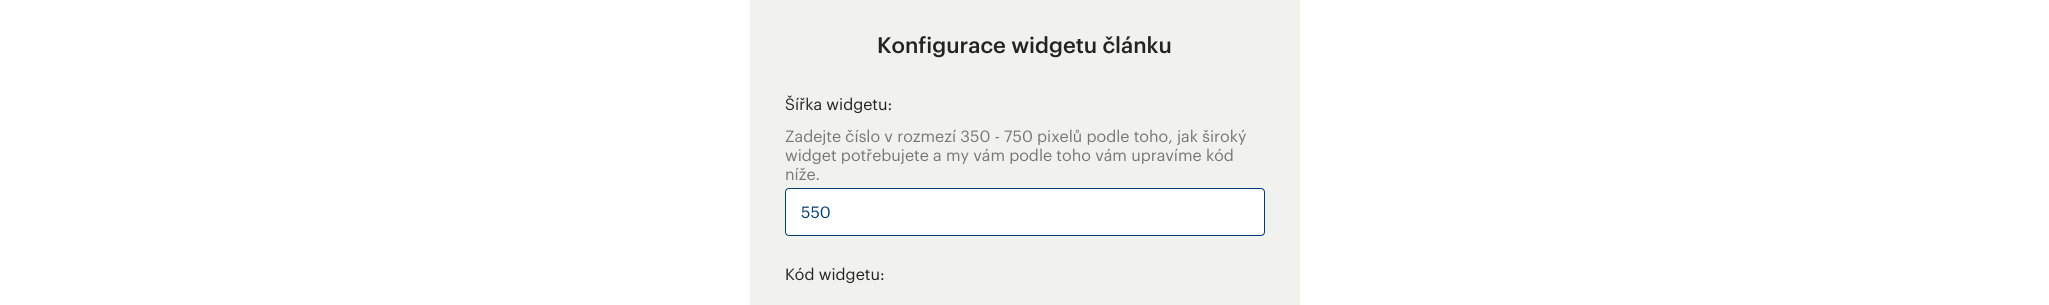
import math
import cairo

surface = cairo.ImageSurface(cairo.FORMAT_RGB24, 2049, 305)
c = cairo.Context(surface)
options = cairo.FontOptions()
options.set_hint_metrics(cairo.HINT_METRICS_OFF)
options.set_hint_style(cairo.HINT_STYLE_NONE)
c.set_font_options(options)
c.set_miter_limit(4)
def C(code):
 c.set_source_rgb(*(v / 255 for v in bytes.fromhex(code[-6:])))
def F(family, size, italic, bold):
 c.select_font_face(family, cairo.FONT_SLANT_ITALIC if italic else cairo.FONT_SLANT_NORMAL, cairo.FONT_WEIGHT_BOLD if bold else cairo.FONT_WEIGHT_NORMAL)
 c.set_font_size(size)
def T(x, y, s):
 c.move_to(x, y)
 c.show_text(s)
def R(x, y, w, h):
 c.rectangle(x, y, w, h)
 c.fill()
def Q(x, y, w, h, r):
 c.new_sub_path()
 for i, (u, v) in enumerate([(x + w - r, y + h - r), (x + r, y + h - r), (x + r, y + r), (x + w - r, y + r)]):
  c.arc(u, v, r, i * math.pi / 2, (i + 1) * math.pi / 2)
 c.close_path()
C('ffffff')
c.paint()
C('f1f1ee')
R(750,0,550,305)
F('Graphik Medium',22,0,0)
C('232323')
T(877,53,'Konfigurace widgetu článku')
F('Graphik',16,0,0)
T(785,110,'Šířka widgetu:')
C('777777')
T(785,142,'Zadejte číslo v rozmezí 350 - 750 pixelů podle toho, jak široký')
T(785,161,'widget potřebujete a my vám podle toho vám upravíme kód')
T(785,180,'níže.')
C('ffffff')
Q(785.5,188.5,479,47,3.5)
c.fill_preserve()
C('003c78')
c.set_line_width(1)
c.stroke()
T(801,218,'550')
C('232323')
T(785,280,'Kód widgetu:')
surface.write_to_png('o.png')
